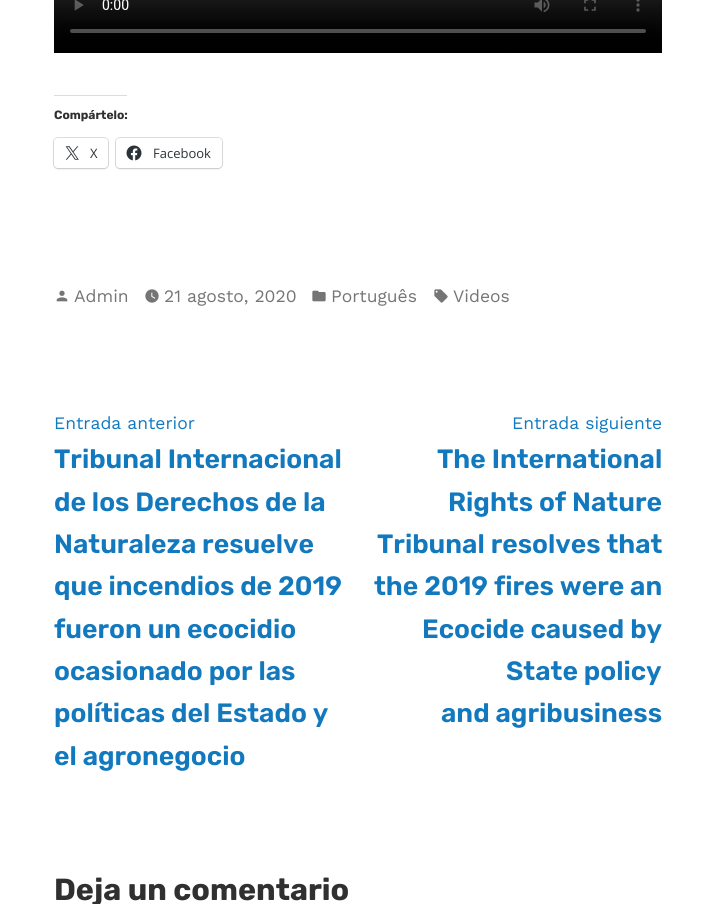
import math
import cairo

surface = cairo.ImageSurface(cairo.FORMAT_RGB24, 715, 904)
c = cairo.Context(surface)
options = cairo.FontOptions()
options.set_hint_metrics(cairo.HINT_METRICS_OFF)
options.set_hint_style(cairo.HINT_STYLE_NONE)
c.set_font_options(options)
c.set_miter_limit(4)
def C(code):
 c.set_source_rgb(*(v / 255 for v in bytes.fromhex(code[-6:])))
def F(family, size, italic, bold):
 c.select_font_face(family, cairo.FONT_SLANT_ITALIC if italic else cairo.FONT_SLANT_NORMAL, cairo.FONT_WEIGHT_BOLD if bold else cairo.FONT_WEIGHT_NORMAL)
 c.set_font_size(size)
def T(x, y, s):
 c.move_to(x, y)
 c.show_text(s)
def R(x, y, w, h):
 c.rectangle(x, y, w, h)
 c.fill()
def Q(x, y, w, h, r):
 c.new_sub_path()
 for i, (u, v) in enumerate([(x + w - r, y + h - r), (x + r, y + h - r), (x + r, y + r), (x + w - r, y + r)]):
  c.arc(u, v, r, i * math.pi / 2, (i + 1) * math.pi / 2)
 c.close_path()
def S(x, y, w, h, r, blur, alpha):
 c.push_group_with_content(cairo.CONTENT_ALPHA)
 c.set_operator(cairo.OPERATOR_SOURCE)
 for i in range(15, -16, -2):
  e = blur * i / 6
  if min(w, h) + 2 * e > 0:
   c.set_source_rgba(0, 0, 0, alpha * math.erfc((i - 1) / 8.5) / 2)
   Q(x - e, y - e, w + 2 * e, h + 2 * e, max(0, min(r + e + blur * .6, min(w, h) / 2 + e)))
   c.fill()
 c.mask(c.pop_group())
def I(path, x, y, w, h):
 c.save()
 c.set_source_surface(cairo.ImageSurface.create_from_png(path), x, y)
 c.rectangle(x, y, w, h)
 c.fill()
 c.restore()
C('ffffff')
c.paint()
I('1.png',54,0,608,53)
C('dcdcde')
R(54,95,73,1)
F('Rubik',12,0,1)
C('303030')
T(54,119,'Compártelo:')
Q(53.5,137.5,55,31,4.5)
C('e0e0e0')
c.set_line_width(1)
c.stroke()
C('000000')
S(54,139,54,30,4,1,.12)
C('ffffff')
Q(54,138,54,30,4)
c.fill()
I('2.png',65,146,14,14)
F('Open Sans',13,0,0)
C('2c3338')
T(90,158,'X')
Q(115.5,137.5,107,31,4.5)
C('e0e0e0')
c.stroke()
C('000000')
S(116,139,106,30,4,1,.12)
C('ffffff')
Q(116,138,106,30,4)
c.fill()
I('3.png',126,145,16,16)
C('2c3338')
T(153,158,'Facebook')
I('4.png',56,290,12,12)
F('Work Sans',17.5,0,0)
C('757575')
T(74,302,'Admin')
I('5.png',145,289,14,14)
T(164,302,'21 agosto, 2020')
I('6.png',312,290,14,12)
T(331,302,'Português')
I('7.png',434,289,14,14)
T(453,302,'Videos')
C('1279be')
T(54,429,'Entrada anterior')
F('Rubik SemiBold',26.5,0,0)
T(54,468,'Tribunal Internacional')
T(54,511,'de los Derechos de la')
T(54,553,'Naturaleza resuelve')
T(54,595,'que incendios de 2019')
T(54,638,'fueron un ecocidio')
T(54,680,'ocasionado por las')
T(54,722,'políticas del Estado y')
T(54,765,'el agronegocio')
F('Work Sans',17.5,0,0)
T(512,429,'Entrada siguiente')
F('Rubik SemiBold',26.5,0,0)
T(437,468,'The International')
T(448,511,'Rights of Nature')
T(377,553,'Tribunal resolves that')
T(374,595,'the 2019 fires were an')
T(422,638,'Ecocide caused by')
T(506,680,'State policy')
T(441,722,'and agribusiness')
F('Rubik',30.5,0,1)
C('303030')
T(54,900,'Deja un comentario')
surface.write_to_png('o.png')
